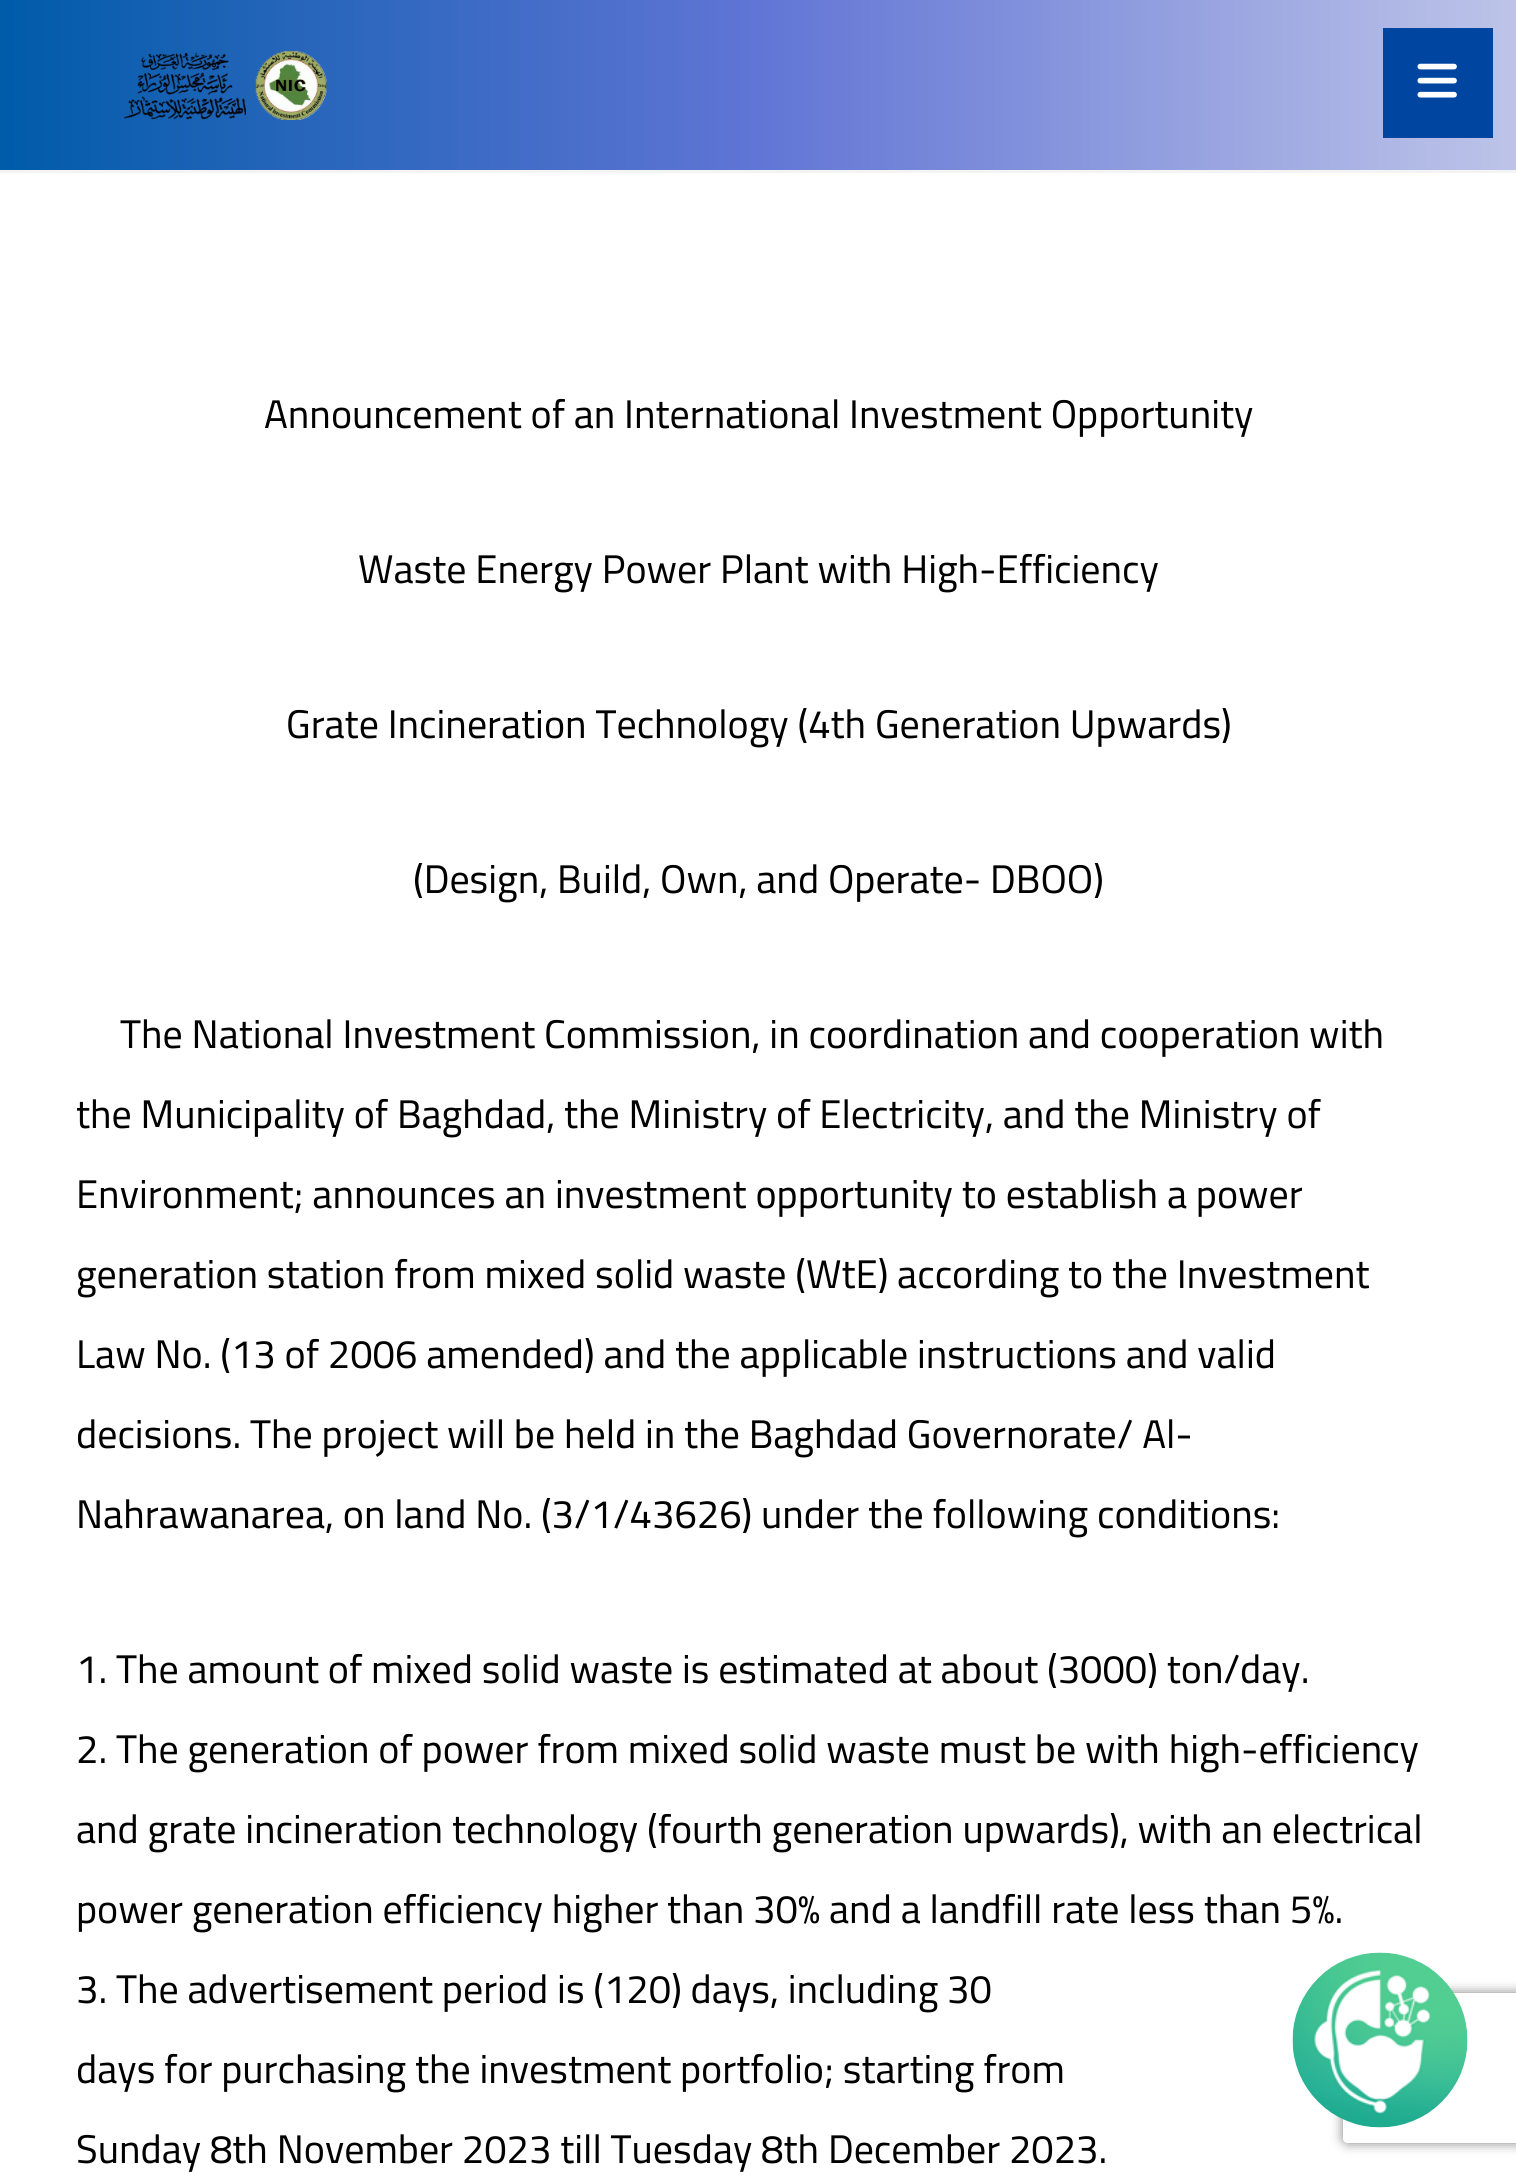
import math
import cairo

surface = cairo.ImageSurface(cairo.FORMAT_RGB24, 1516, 2176)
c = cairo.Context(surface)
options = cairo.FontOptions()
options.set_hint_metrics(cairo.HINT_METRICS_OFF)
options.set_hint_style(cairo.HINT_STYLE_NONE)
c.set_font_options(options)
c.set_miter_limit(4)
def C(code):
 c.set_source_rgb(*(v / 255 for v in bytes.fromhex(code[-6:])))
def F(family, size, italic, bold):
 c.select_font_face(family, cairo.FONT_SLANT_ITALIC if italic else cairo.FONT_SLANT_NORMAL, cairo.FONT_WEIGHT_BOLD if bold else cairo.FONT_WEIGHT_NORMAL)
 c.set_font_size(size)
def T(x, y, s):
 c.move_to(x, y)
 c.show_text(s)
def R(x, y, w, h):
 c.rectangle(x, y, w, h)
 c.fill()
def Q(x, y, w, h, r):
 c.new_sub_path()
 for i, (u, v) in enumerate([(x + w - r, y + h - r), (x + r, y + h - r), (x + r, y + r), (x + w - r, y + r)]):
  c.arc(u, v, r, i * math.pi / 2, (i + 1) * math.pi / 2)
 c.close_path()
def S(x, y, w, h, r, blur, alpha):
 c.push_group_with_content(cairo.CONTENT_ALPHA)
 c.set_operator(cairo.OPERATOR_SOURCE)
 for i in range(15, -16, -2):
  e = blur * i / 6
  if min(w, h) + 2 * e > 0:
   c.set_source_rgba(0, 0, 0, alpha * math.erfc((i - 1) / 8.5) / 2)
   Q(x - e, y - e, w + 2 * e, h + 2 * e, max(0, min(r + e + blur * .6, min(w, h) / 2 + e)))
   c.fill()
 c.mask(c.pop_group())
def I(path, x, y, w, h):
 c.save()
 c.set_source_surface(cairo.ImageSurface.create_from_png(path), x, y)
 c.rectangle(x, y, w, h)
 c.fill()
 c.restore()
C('ffffff')
c.paint()
gradient = cairo.LinearGradient(0,85,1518,85)
gradient.add_color_stop_rgba(0,0,0.357,0.663,1)
gradient.add_color_stop_rgba(.5,0.38,0.459,0.835,1)
gradient.add_color_stop_rgba(1,0.745,0.769,0.91,1)
c.set_source(gradient)
R(0,0,1516,170)
C('f4f4f4')
R(0,170,1516,3)
I('1.png',124,50,203,70)
C('0045a0')
R(1383,28,110,110)
I('2.png',1417,63,40,35)
F('Cairo',40,0,0)
C('000000')
T(264,428,'Announcement of an International Investment Opportunity')
T(358,583,'Waste Energy Power Plant with High-Efficiency')
T(286,738,'Grate Incineration Technology (4th Generation Upwards)')
T(413,893,'(Design, Build, Own, and Operate- DBOO)')
T(120,1048,'The National Investment Commission, in coordination and cooperation with')
T(76,1128,'the Municipality of Baghdad, the Ministry of Electricity, and the Ministry of')
T(76,1208,'Environment; announces an investment opportunity to establish a power')
T(76,1288,'generation station from mixed solid waste (WtE) according to the Investment')
T(76,1368,'Law No. (13 of 2006 amended) and the applicable instructions and valid')
T(76,1448,'decisions. The project will be held in the Baghdad Governorate/ Al-')
T(76,1528,'Nahrawanarea, on land No. (3/1/43626) under the following conditions:')
T(76,1683,'1. The amount of mixed solid waste is estimated at about (3000) ton/day.')
T(76,1763,'2. The generation of power from mixed solid waste must be with high-efficiency')
T(76,1843,'and grate incineration technology (fourth generation upwards), with an electrical')
T(76,1923,'power generation efficiency higher than 30% and a landfill rate less than 5%.')
T(76,2003,'3. The advertisement period is (120) days, including 30')
T(76,2083,'days for purchasing the investment portfolio; starting from')
T(76,2163,'Sunday 8th November 2023 till Tuesday 8th December 2023.')
c.save()
c.set_fill_rule(cairo.FILL_RULE_EVEN_ODD)
c.new_path()
c.move_to(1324,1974)
c.line_to(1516,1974)
c.line_to(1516,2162)
c.line_to(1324,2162)
c.close_path()
c.move_to(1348,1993)
c.line_to(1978,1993)
c.curve_to(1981,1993,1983,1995,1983,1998)
c.line_to(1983,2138)
c.curve_to(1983,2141,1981,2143,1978,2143)
c.line_to(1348,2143)
c.curve_to(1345,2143,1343,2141,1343,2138)
c.line_to(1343,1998)
c.curve_to(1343,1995,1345,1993,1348,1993)
c.close_path()
c.clip()
C('808080')
S(1343,1993,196,150,5,6,1)
c.restore()
I('3.png',1292,1952,176,176)
surface.write_to_png('o.png')
